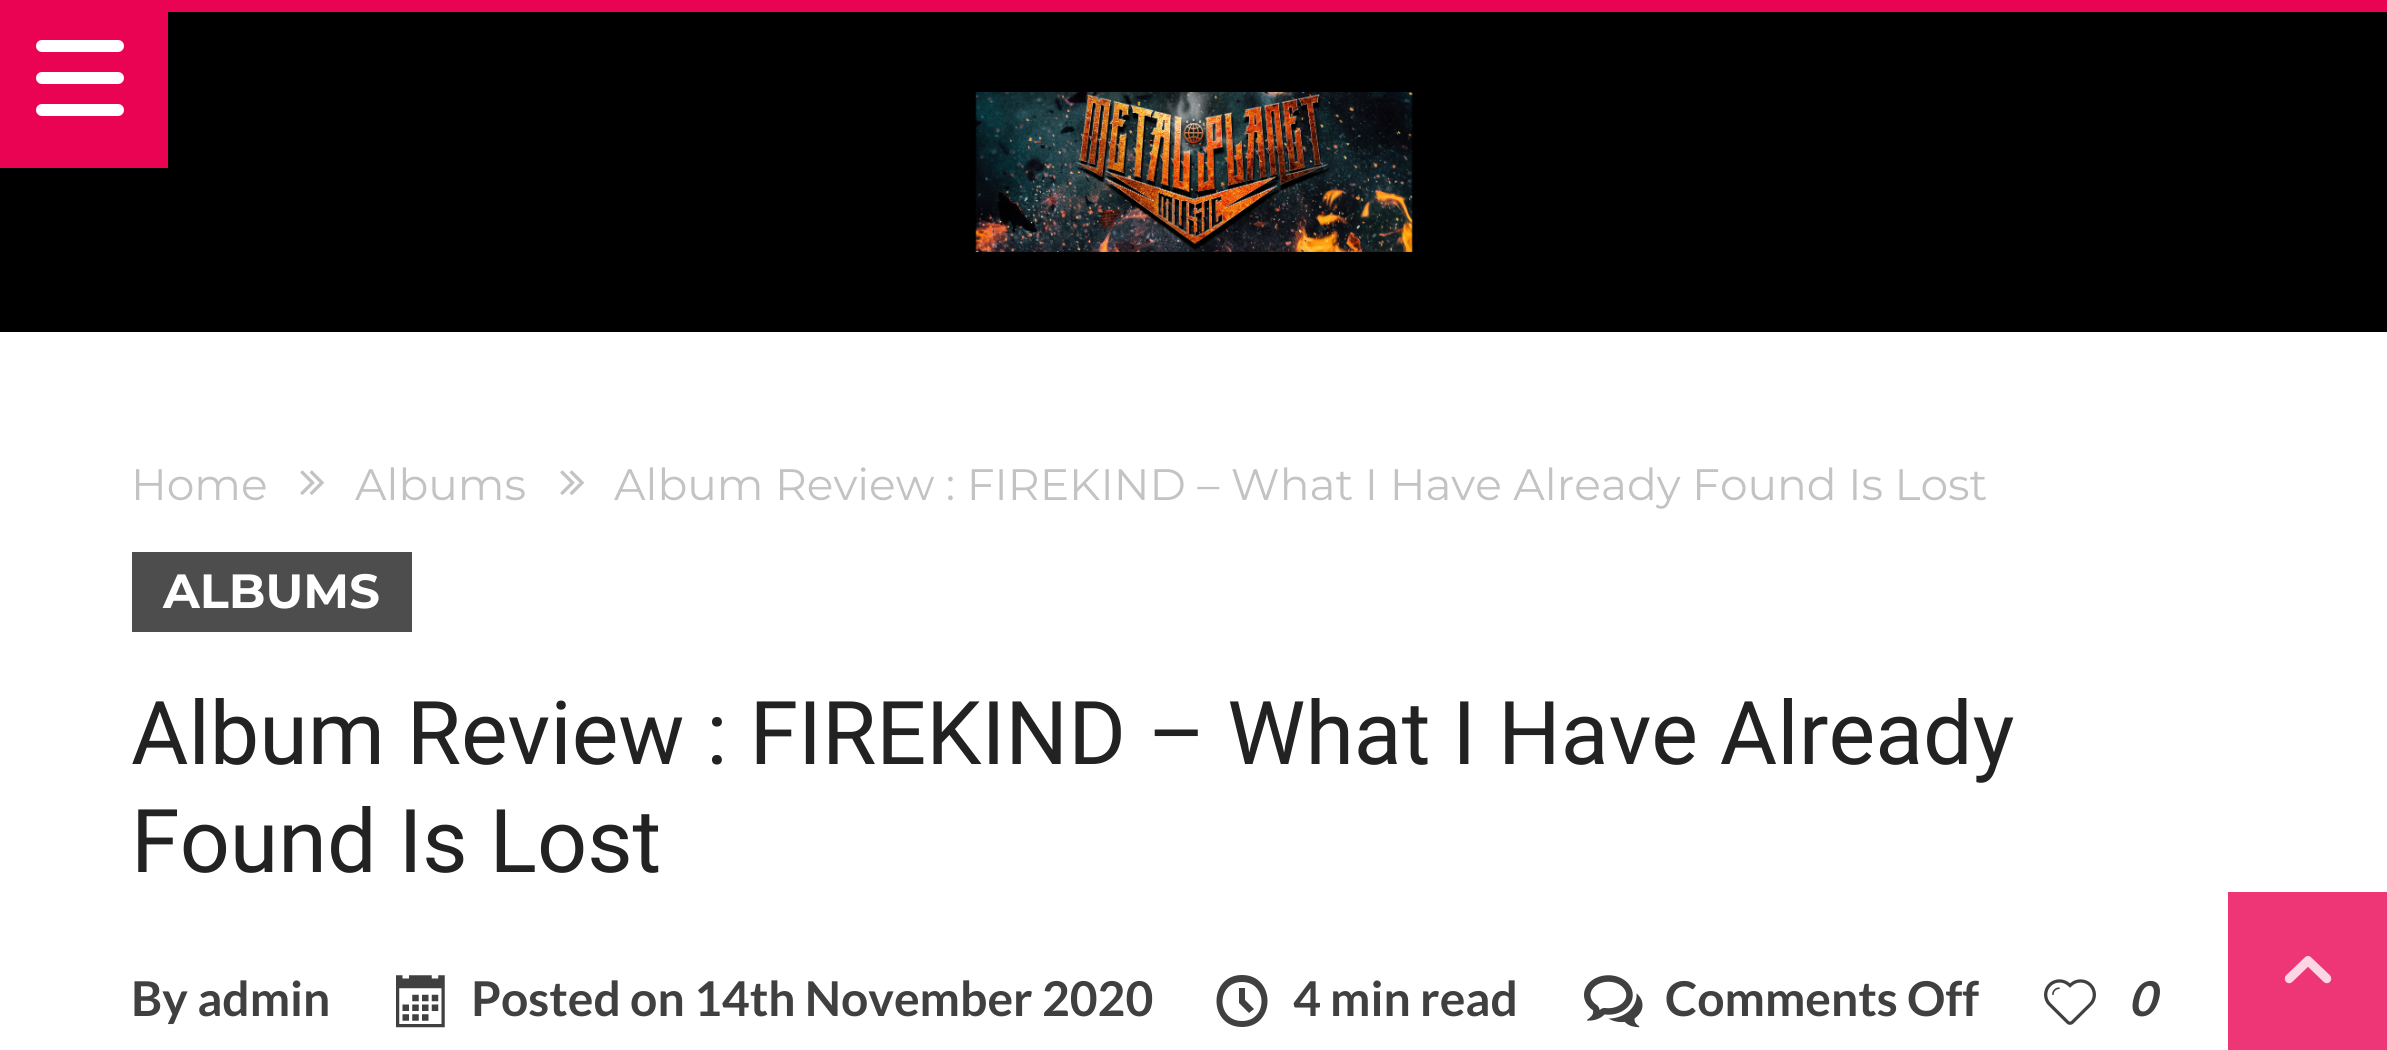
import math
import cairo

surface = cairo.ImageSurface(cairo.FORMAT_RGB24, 2387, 1050)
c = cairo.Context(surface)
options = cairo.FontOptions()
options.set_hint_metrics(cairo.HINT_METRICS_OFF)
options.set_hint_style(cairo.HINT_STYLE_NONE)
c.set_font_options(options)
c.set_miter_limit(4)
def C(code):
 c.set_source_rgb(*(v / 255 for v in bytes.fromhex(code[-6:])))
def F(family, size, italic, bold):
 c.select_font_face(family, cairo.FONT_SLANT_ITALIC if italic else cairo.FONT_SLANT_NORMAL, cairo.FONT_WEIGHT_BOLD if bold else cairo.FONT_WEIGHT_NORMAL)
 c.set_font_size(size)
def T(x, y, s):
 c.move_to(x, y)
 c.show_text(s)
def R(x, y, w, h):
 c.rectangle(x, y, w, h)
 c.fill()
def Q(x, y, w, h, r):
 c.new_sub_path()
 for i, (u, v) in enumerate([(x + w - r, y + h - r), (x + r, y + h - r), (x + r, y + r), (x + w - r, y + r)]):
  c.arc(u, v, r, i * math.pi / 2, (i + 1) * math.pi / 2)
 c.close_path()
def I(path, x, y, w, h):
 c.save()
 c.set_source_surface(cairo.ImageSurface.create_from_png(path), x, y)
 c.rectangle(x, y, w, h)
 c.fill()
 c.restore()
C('ffffff')
c.paint()
C('ea0253')
R(168,0,2219,12)
C('000000')
R(0,12,2387,320)
C('ea0253')
R(0,0,168,168)
C('ffffff')
Q(36,40,88,12,6)
c.fill()
Q(36,72,88,12,6)
c.fill()
Q(36,104,88,12,6)
c.fill()
I('1.png',975,92,438,160)
F('Montserrat',44,0,0)
C('c3c3c3')
T(131,500,'Home')
I('2.png',300,470,24,25)
T(355,500,'Albums')
I('2.png',560,470,24,25)
T(614,500,'Album Review : FIREKIND – What I Have Already Found Is Lost')
C('4d4d4d')
R(132,552,280,80)
F('Montserrat',48,0,1)
C('ffffff')
T(163,608,'ALBUMS')
F('Roboto',88,0,0)
C('222222')
T(131,764,'Album Review : FIREKIND – What I Have Already')
T(131,872,'Found Is Lost')
F('Lato',48,0,1)
C('404040')
T(131,1016,'By admin')
I('3.png',396,975,49,53)
T(471,1016,'Posted on 14th November 2020')
c.new_path()
c.move_to(1249,1013)
c.line_to(1239,1003)
c.line_to(1239,988)
c.line_to(1245,988)
c.line_to(1245,1000)
c.line_to(1254,1009)
c.close_path()
c.move_to(1242,975)
c.curve_to(1208,975,1208,1027,1242,1027)
c.curve_to(1276,1027,1276,975,1242,975)
c.close_path()
c.move_to(1242,1021)
c.curve_to(1216,1021,1216,982,1242,982)
c.curve_to(1268,982,1268,1021,1242,1021)
c.close_path()
c.fill()
T(1293,1016,'4 min read')
I('4.png',1584,975,59,53)
T(1665,1016,'Comments Off')
I('5.png',2044,979,52,46)
F('Lato',48,1,1)
T(2128,1016,'0')
C('ee3575')
R(2228,892,159,158)
I('6.png',2284,956,48,28)
surface.write_to_png('o.png')
